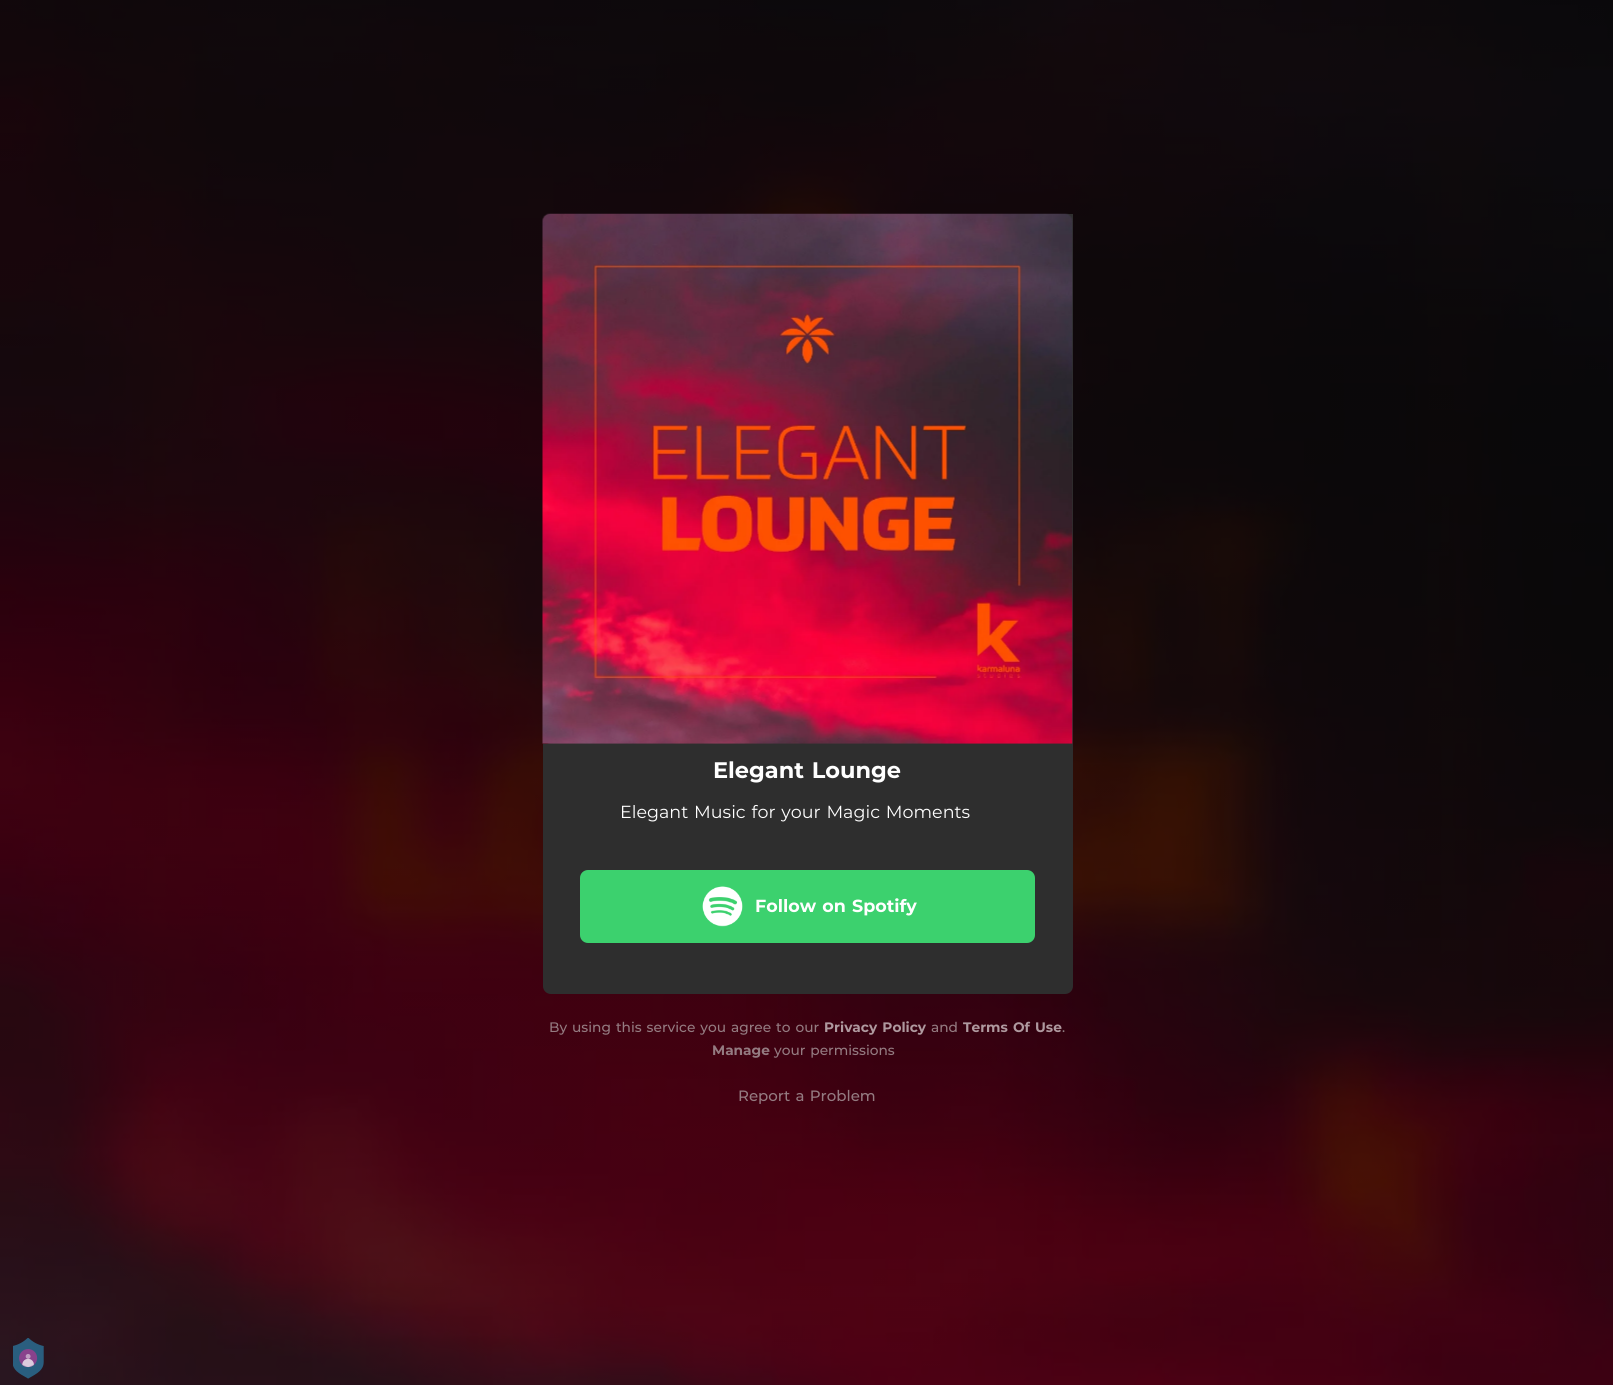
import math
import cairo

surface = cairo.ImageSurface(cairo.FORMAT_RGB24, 1613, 1385)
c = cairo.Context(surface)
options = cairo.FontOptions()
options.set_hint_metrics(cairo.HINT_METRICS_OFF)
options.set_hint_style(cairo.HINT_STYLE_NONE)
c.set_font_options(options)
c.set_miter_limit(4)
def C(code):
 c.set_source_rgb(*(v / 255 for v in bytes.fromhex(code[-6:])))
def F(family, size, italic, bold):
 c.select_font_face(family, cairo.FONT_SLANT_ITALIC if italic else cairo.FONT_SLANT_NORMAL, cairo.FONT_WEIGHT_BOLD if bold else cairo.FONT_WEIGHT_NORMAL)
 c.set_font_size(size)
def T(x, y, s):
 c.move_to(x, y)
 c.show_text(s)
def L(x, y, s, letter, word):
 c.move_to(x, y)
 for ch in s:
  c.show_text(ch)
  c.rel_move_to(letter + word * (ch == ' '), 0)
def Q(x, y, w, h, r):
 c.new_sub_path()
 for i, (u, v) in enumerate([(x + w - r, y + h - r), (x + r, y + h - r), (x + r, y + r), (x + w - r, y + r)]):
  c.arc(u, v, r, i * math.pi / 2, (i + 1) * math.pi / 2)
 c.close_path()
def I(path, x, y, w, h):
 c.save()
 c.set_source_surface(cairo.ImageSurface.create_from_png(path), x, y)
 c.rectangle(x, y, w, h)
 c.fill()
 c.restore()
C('ffffff')
c.paint()
I('1.png',0,0,1613,1385)
C('2f2f2f')
c.new_path()
c.move_to(551,214)
c.line_to(1073,214)
c.line_to(1073,744)
c.line_to(551,744)
c.curve_to(546.5,744,543,740.5,543,736)
c.line_to(543,222)
c.curve_to(543,217.5,546.5,214,551,214)
c.close_path()
c.fill()
I('2.png',542,213,531,531)
C('2e2e2e')
c.new_path()
c.move_to(543,744)
c.line_to(1073,744)
c.line_to(1073,986)
c.curve_to(1073,990.5,1069.5,994,1065,994)
c.line_to(551,994)
c.curve_to(546.5,994,543,990.5,543,986)
c.close_path()
c.fill()
F('Montserrat',22.5,0,1)
C('ffffff')
L(713,778,'Elegant Lounge',0,1.25)
F('Montserrat',17.5,0,0)
L(620,818,'Elegant Music for your Magic Moments',0,1.25)
C('3cd16e')
Q(580,870,455,73,8)
c.fill()
I('3.png',702,886,41,41)
F('Montserrat',17.5,0,1)
C('ffffff')
L(755,912,'Follow on Spotify',0,1.25)
F('Montserrat Medium',13.75,0,0)
C('947b81')
L(549,1032,'By using this service you agree to our',0,1.25)
F('Montserrat',13.75,0,1)
C('af999f')
L(824,1032,'Privacy Policy',0,1.25)
F('Montserrat Medium',13.75,0,0)
C('947b81')
T(931,1032,'and')
F('Montserrat',13.75,0,1)
C('af999f')
L(963,1032,'Terms Of Use',0,1.25)
F('Montserrat Medium',13.75,0,0)
C('8e7b80')
T(1062,1032,'.')
F('Montserrat',13.75,0,1)
C('947b81')
T(712,1055,'Manage')
F('Montserrat Medium',13.75,0,0)
L(774,1055,'your permissions',0,1.25)
F('Montserrat Medium',15,0,0)
L(738,1101,'Report a Problem',0,1.25)
I('4.png',13,1338,31,41)
surface.write_to_png('o.png')
